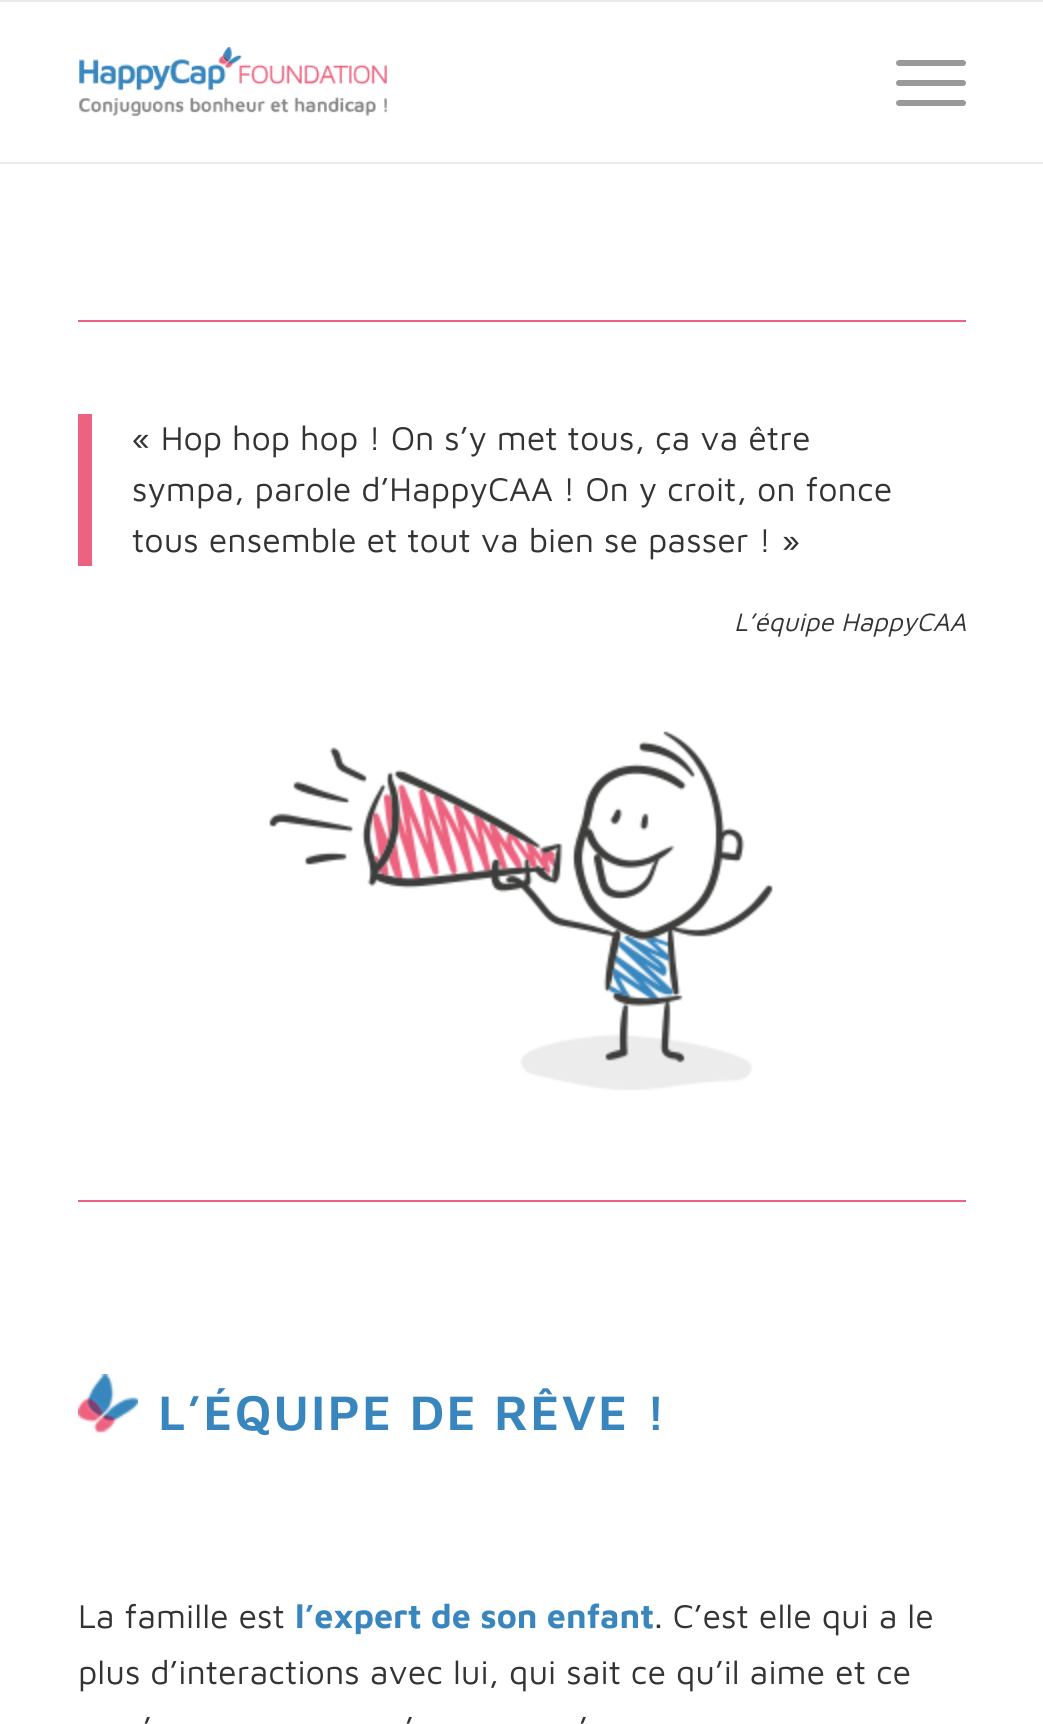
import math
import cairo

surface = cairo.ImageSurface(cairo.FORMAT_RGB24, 1043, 1724)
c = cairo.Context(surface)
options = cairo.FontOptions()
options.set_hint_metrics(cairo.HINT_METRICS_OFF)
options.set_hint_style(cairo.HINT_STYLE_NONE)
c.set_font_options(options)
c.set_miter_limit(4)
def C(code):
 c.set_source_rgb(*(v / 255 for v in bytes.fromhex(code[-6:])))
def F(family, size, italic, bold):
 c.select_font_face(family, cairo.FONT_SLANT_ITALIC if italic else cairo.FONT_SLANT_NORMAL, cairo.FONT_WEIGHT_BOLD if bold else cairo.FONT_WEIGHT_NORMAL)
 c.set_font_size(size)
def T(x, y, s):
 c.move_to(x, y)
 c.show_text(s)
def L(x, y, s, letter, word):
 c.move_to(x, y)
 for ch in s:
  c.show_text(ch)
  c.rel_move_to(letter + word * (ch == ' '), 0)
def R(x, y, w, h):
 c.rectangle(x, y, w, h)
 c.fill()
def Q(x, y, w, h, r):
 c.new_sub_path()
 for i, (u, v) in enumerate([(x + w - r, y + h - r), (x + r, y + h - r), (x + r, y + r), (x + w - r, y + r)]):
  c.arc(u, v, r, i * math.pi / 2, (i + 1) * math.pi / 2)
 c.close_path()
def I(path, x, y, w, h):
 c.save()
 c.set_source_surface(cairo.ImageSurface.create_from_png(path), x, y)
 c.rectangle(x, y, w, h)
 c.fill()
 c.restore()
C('ffffff')
c.paint()
C('ebebeb')
R(0,0,1043,2)
R(0,162,1043,2)
I('1.png',79,46,309,71)
C('999999')
Q(896,80,70,6,3)
c.fill()
Q(896,60,70,6,3)
c.fill()
Q(896,100,70,6,3)
c.fill()
C('ec6280')
R(78,320,888,2)
R(78,414,14,152)
F('Maven Pro',34,0,0)
C('333333')
T(132,450,'« Hop hop hop ! On s’y met tous, ça va être')
T(132,501,'sympa, parole d’HappyCAA ! On y croit, on fonce')
T(132,552,'tous ensemble et tout va bien se passer ! »')
F('Maven Pro',26,1,0)
T(734,631,'L’équipe HappyCAA')
I('2.png',269,731,504,360)
C('ec6280')
R(78,1200,888,2)
I('3.png',78,1374,60,59)
F('Maven Pro SemiBold',50,0,0)
C('3986be')
L(158,1430,'L’ÉQUIPE DE RÊVE !',2,0)
F('Maven Pro',34,0,0)
C('333333')
T(78,1628,'La famille est')
F('Maven Pro',34,0,1)
C('3986be')
T(295,1628,'l’expert de son enfant')
F('Maven Pro',34,0,0)
C('333333')
T(654,1628,'. C’est elle qui a le')
T(78,1684,'plus d’interactions avec lui, qui sait ce qu’il aime et ce')
T(143,1740,'’')
T(405,1740,'’')
T(579,1740,'’')
surface.write_to_png('o.png')
